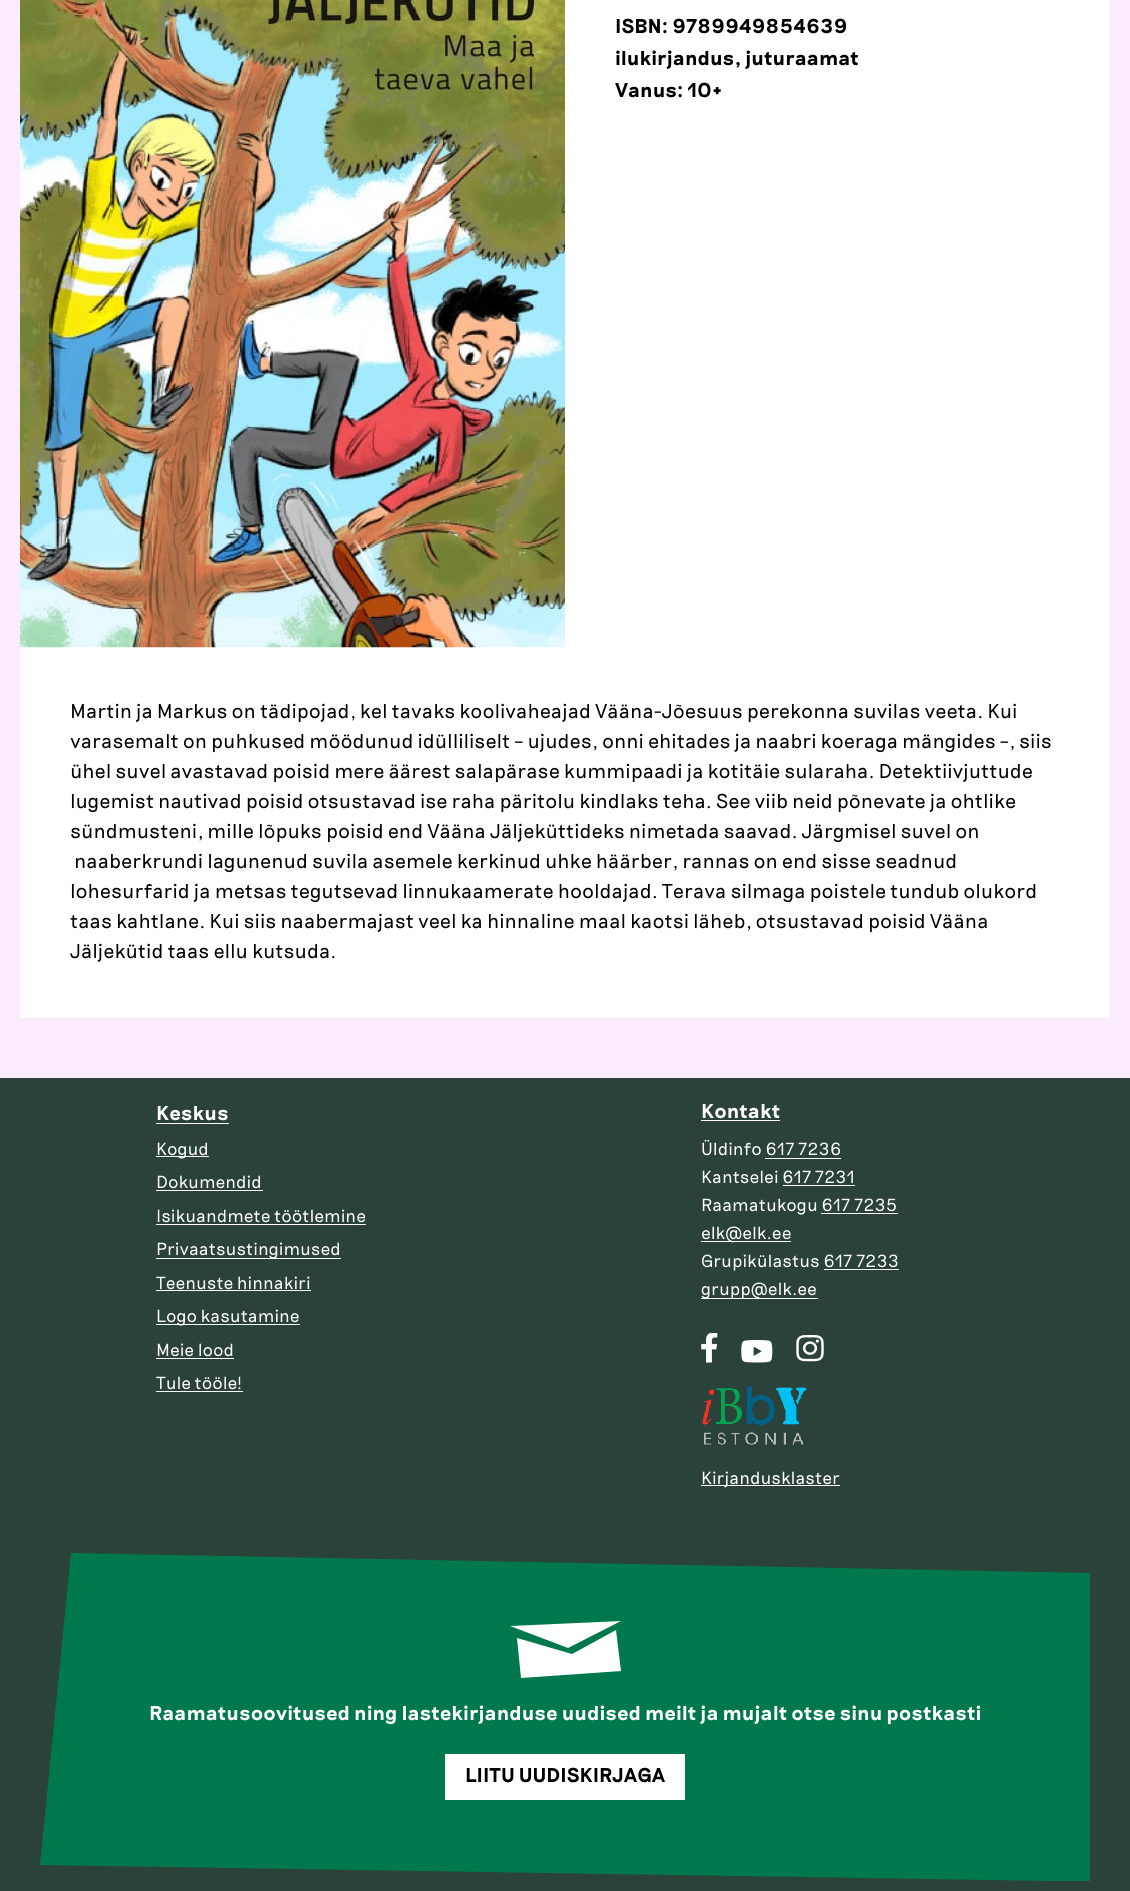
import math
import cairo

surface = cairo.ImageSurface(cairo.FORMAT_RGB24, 1130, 1891)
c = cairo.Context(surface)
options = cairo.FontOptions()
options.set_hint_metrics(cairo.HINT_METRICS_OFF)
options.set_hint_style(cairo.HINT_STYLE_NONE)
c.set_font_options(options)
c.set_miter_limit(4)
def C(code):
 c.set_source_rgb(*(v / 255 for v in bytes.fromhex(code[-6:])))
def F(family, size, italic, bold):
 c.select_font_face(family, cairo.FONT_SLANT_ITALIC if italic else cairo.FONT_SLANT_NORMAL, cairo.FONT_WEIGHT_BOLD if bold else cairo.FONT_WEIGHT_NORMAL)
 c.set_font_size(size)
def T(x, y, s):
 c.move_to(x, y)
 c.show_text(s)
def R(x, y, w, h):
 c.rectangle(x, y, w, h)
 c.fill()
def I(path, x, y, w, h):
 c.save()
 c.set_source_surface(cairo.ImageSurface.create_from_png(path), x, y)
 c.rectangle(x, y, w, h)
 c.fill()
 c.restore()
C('2b423a')
c.paint()
C('fbebff')
R(0,0,1130,1078)
C('ffffff')
R(20,0,1090,1018)
I('1.png',20,0,545,648)
F('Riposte',20,0,1)
C('000000')
T(615,33,'ISBN: 9789949854639')
T(615,65,'ilukirjandus, juturaamat')
T(615,97,'Vanus: 10+')
F('Riposte Light',20,0,0)
T(70,718,'Martin ja Markus on tädipojad, kel tavaks koolivaheajad Vääna-Jõesuus perekonna suvilas veeta. Kui')
T(70,748,'varasemalt on puhkused möödunud idülliliselt – ujudes, onni ehitades ja naabri koeraga mängides –, siis')
T(70,778,'ühel suvel avastavad poisid mere äärest salapärase kummipaadi ja kotitäie sularaha. Detektiivjuttude')
T(70,808,'lugemist nautivad poisid otsustavad ise raha päritolu kindlaks teha. See viib neid põnevate ja ohtlike')
T(70,838,'sündmusteni, mille lõpuks poisid end Vääna Jäljeküttideks nimetada saavad. Järgmisel suvel on')
T(74,868,'naaberkrundi lagunenud suvila asemele kerkinud uhke häärber, rannas on end sisse seadnud')
T(70,898,'lohesurfarid ja metsas tegutsevad linnukaamerate hooldajad. Terava silmaga poistele tundub olukord')
T(70,928,'taas kahtlane. Kui siis naabermajast veel ka hinnaline maal kaotsi läheb, otsustavad poisid Vääna')
T(70,958,'Jäljekütid taas ellu kutsuda.')
F('Riposte',20,0,1)
C('ffffff')
T(156,1120,'Keskus')
R(156,1123,73,1)
R(156,1156,53,1)
F('Riposte Light',17.5,0,0)
T(156,1155,'Kogud')
T(156,1188,'Dokumendid')
R(156,1190,107,1)
T(156,1222,'Isikuandmete töötlemine')
R(156,1224,210,1)
R(156,1258,185,1)
T(156,1255,'Privaatsustingimused')
T(156,1289,'Teenuste hinnakiri')
R(156,1290,155,1)
R(156,1324,144,1)
T(156,1322,'Logo kasutamine')
T(156,1356,'Meie lood')
R(156,1358,78,1)
T(156,1389,'Tule tööle!')
R(156,1391,87,1)
F('Riposte',20,0,1)
T(701,1118,'Kontakt')
R(701,1120,79,1)
F('Riposte Light',17.5,0,0)
T(701,1155,'Üldinfo 617 7236')
R(765,1158,76,1)
T(701,1183,'Kantselei 617 7231')
R(783,1185,72,1)
T(701,1211,'Raamatukogu 617 7235')
R(821,1213,77,1)
R(701,1241,90,1)
T(701,1239,'elk@elk.ee')
T(701,1267,'Grupikülastus 617 7233')
R(824,1269,75,1)
R(701,1298,117,1)
T(701,1295,'grupp@elk.ee')
I('2.png',701,1333,17,30)
I('3.png',741,1340,32,23)
I('4.png',796,1335,28,27)
I('5.png',702,1386,105,59)
R(701,1485,139,1)
T(701,1484,'Kirjandusklaster')
C('00784d')
c.new_path()
c.move_to(1052,1881)
c.line_to(40,1865)
c.line_to(71,1553)
c.line_to(1090,1573)
c.line_to(1090,1881)
c.close_path()
c.fill()
C('ffffff')
c.new_path()
c.move_to(621,1621)
c.line_to(510,1626)
c.line_to(568,1648)
c.close_path()
c.fill()
c.new_path()
c.move_to(572,1654)
c.line_to(517,1638)
c.line_to(521,1678)
c.line_to(621,1671)
c.line_to(616,1630)
c.close_path()
c.fill()
F('Riposte',20,0,1)
T(149,1720,'Raamatusoovitused ning lastekirjanduse uudised meilt ja mujalt otse sinu postkasti')
R(445,1754,240,46)
C('000000')
T(465,1782,'LIITU UUDISKIRJAGA')
surface.write_to_png('o.png')
